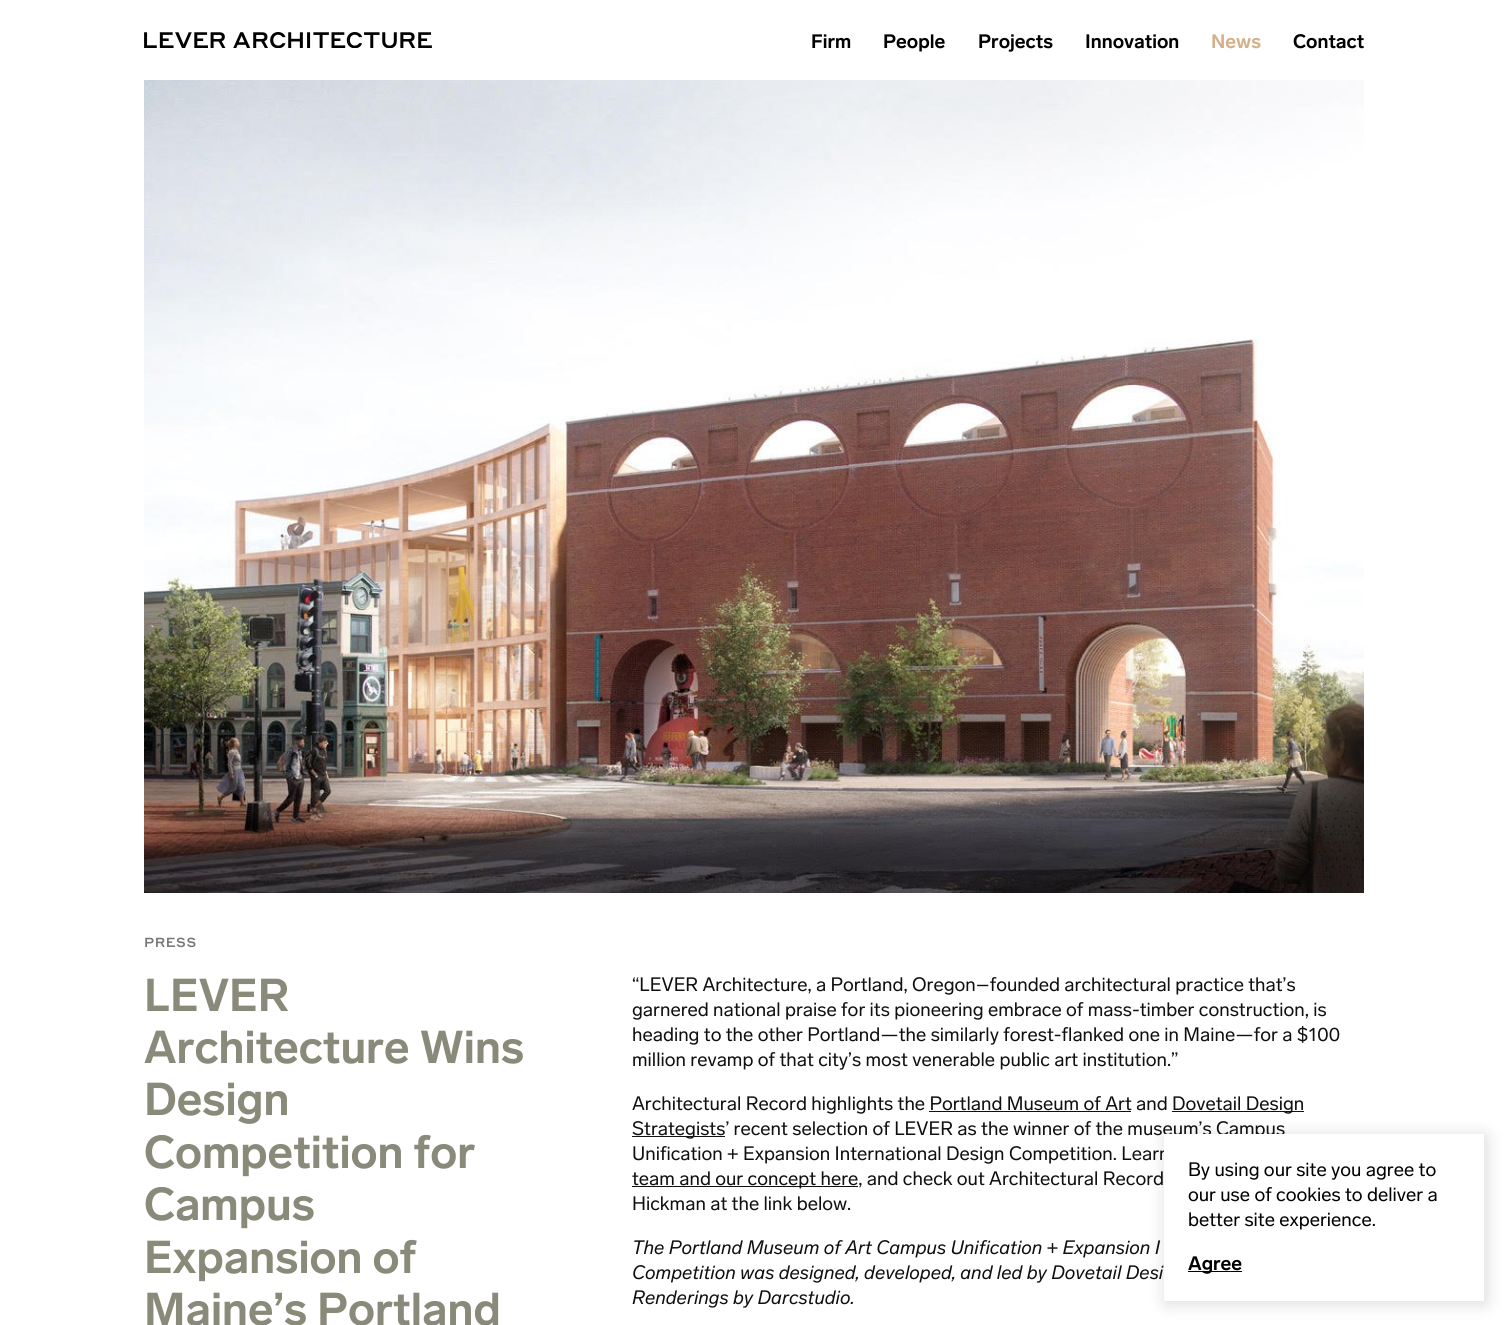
import math
import cairo

surface = cairo.ImageSurface(cairo.FORMAT_RGB24, 1508, 1325)
c = cairo.Context(surface)
options = cairo.FontOptions()
options.set_hint_metrics(cairo.HINT_METRICS_OFF)
options.set_hint_style(cairo.HINT_STYLE_NONE)
c.set_font_options(options)
c.set_miter_limit(4)
def C(code):
 c.set_source_rgb(*(v / 255 for v in bytes.fromhex(code[-6:])))
def F(family, size, italic, bold):
 c.select_font_face(family, cairo.FONT_SLANT_ITALIC if italic else cairo.FONT_SLANT_NORMAL, cairo.FONT_WEIGHT_BOLD if bold else cairo.FONT_WEIGHT_NORMAL)
 c.set_font_size(size)
def T(x, y, s):
 c.move_to(x, y)
 c.show_text(s)
def L(x, y, s, letter, word):
 c.move_to(x, y)
 for ch in s:
  c.show_text(ch)
  c.rel_move_to(letter + word * (ch == ' '), 0)
def R(x, y, w, h):
 c.rectangle(x, y, w, h)
 c.fill()
def Q(x, y, w, h, r):
 c.new_sub_path()
 for i, (u, v) in enumerate([(x + w - r, y + h - r), (x + r, y + h - r), (x + r, y + r), (x + w - r, y + r)]):
  c.arc(u, v, r, i * math.pi / 2, (i + 1) * math.pi / 2)
 c.close_path()
def S(x, y, w, h, r, blur, alpha):
 c.push_group_with_content(cairo.CONTENT_ALPHA)
 c.set_operator(cairo.OPERATOR_SOURCE)
 for i in range(15, -16, -2):
  e = blur * i / 6
  if min(w, h) + 2 * e > 0:
   c.set_source_rgba(0, 0, 0, alpha * math.erfc((i - 1) / 8.5) / 2)
   Q(x - e, y - e, w + 2 * e, h + 2 * e, max(0, min(r + e + blur * .6, min(w, h) / 2 + e)))
   c.fill()
 c.mask(c.pop_group())
def I(path, x, y, w, h):
 c.save()
 c.set_source_surface(cairo.ImageSurface.create_from_png(path), x, y)
 c.rectangle(x, y, w, h)
 c.fill()
 c.restore()
C('ffffff')
c.paint()
I('1.png',144,32,288,16)
F('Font',19.2,0,1)
C('000000')
T(811,48,'Firm')
T(883,48,'People')
T(978,48,'Projects')
T(1085,48,'Innovation')
C('d4b08b')
T(1211,48,'News')
C('000000')
T(1293,48,'Contact')
I('2.png',144,80,1220,813)
F('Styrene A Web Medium',13,0,0)
C('777777')
L(144,947,'PRESS',.5,0)
F('Font',45.5,0,1)
C('8a8a7a')
T(144,1011,'LEVER')
T(144,1063,'Architecture Wins')
T(144,1115,'Design')
T(144,1168,'Competition for')
T(144,1220,'Campus')
T(144,1273,'Expansion of')
T(144,1325,'Maine’s Portland')
F('Font',19.2,0,0)
C('101010')
T(632,991,'“LEVER Architecture, a Portland, Oregon–founded architectural practice that’s')
T(632,1016,'garnered national praise for its pioneering embrace of mass-timber construction, is')
T(632,1041,'heading to the other Portland—the similarly forest-flanked one in Maine—for a $100')
T(632,1066,'million revamp of that city’s most venerable public art institution.”')
T(632,1110,'Architectural Record highlights the Portland Museum of Art and')
R(1172,1111,132,1)
T(1172,1110,'Dovetail Design')
R(929,1111,202,1)
R(632,1136,93,1)
T(632,1135,'Strategists’ recent selection of LEVER as the winner of the museum’s Campus')
T(632,1160,'Unification + Expansion International Design Competition. Learn')
R(632,1186,226,1)
T(632,1185,'team and our concept here, and check out Architectural Record')
T(632,1210,'Hickman at the link below.')
F('Font',19.2,1,0)
T(632,1254,'The Portland Museum of Art Campus Unification + Expansion I')
T(632,1279,'Competition was designed, developed, and led by Dovetail Desi')
T(632,1304,'Renderings by Darcstudio.')
C('000000')
S(1166,1136,320,167,0,9,.15)
C('ffffff')
R(1164,1134,320,167)
F('Font',19.2,0,0)
C('000000')
T(1188,1176,'By using our site you agree to')
T(1188,1201,'our use of cookies to deliver a')
T(1188,1226,'better site experience.')
R(1188,1271,54,1)
F('Font',19.2,0,1)
T(1188,1270,'Agree')
surface.write_to_png('o.png')
